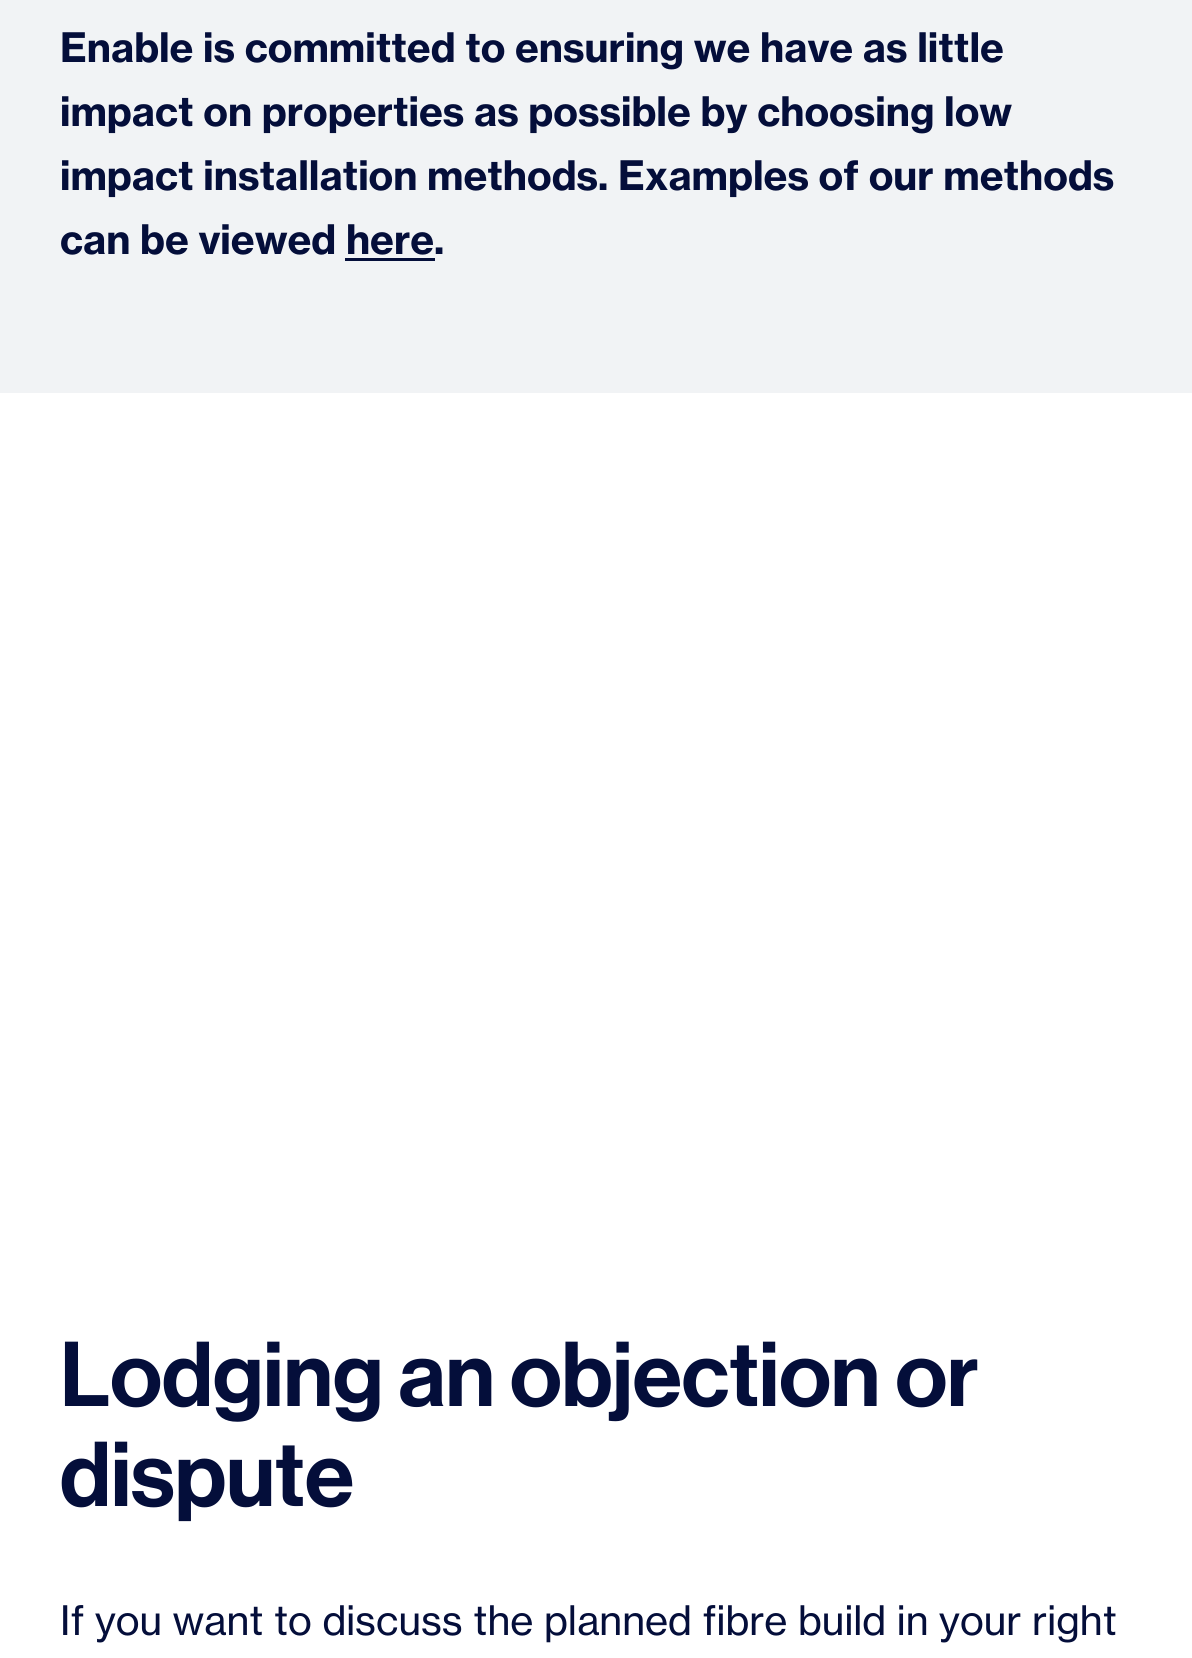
import math
import cairo

surface = cairo.ImageSurface(cairo.FORMAT_RGB24, 1192, 1658)
c = cairo.Context(surface)
options = cairo.FontOptions()
options.set_hint_metrics(cairo.HINT_METRICS_OFF)
options.set_hint_style(cairo.HINT_STYLE_NONE)
c.set_font_options(options)
c.set_miter_limit(4)
def C(code):
 c.set_source_rgb(*(v / 255 for v in bytes.fromhex(code[-6:])))
def F(family, size, italic, bold):
 c.select_font_face(family, cairo.FONT_SLANT_ITALIC if italic else cairo.FONT_SLANT_NORMAL, cairo.FONT_WEIGHT_BOLD if bold else cairo.FONT_WEIGHT_NORMAL)
 c.set_font_size(size)
def T(x, y, s):
 c.move_to(x, y)
 c.show_text(s)
def R(x, y, w, h):
 c.rectangle(x, y, w, h)
 c.fill()
C('ffffff')
c.paint()
C('f1f3f5')
R(0,0,1192,393)
F('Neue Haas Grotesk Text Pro',40,0,1)
C('040e3a')
T(60,62,'Enable is committed to ensuring we have as little')
T(60,126,'impact on properties as possible by choosing low')
T(60,190,'impact installation methods. Examples of our methods')
T(60,254,'can be viewed here.')
R(345,258,90,3)
F('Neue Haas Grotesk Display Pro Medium',90,0,0)
T(60,1406,'Lodging an objection or')
T(60,1506,'dispute')
F('Neue Haas Grotesk Text Pro',40,0,0)
T(60,1635,'If you want to discuss the planned fibre build in your right')
surface.write_to_png('o.png')
